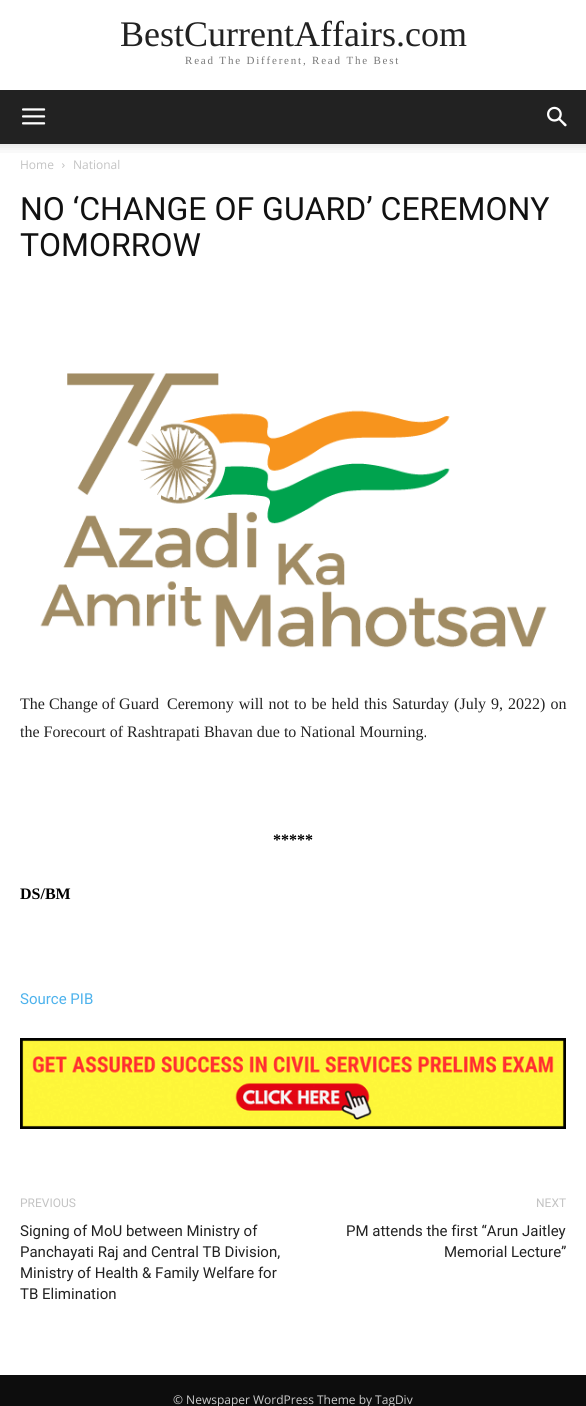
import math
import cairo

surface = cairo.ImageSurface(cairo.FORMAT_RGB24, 586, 1406)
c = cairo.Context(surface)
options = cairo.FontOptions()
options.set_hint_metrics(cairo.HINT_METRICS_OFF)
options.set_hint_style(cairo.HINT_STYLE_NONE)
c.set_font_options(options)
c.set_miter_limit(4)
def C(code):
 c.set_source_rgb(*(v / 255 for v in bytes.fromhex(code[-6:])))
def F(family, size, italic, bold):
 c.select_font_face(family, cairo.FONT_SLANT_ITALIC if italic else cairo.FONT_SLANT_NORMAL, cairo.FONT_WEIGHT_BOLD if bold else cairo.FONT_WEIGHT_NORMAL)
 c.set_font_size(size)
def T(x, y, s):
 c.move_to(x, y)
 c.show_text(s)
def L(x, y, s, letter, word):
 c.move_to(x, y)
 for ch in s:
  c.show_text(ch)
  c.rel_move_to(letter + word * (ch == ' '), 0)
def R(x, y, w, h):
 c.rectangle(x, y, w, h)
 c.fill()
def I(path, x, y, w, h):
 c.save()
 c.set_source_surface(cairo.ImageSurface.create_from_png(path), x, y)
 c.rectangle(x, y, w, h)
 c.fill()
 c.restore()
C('ffffff')
c.paint()
F('Liberation Serif',36,0,0)
C('222222')
T(120,46,'BestCurrentAffairs.com')
F('Liberation Serif',11,0,0)
C('777777')
L(185,64,'Read The Different, Read The Best',1.8,0)
C('222222')
R(0,90,586,54)
I('1.png',22,108,24,17)
I('2.png',547,106,20,21)
I('3.png',0,144,586,9)
F('Open Sans',12,0,0)
C('c3c3c3')
T(20,169,'Home')
I('4.png',62,163,3,5)
T(73,169,'National')
F('Roboto',32,0,0)
C('111111')
T(20,220,'NO ‘CHANGE OF GUARD’ CEREMONY')
T(20,256,'TOMORROW')
I('5.png',40,373,507,275)
F('Liberation Serif',16,0,0)
C('222222')
T(20,709,'The Change of Guard')
L(167,709,'Ceremony will not to be held this Saturday (July 9, 2022) on',0,1)
T(20,737,'the Forecourt of Rashtrapati Bhavan due to National Mourning.')
F('Liberation Serif',16,0,1)
C('000000')
T(273,845,'*****')
T(20,899,'DS/BM')
F('Roboto',15,0,0)
C('4db2ec')
T(20,1004,'Source PIB')
I('6.png',20,1038,546,91)
F('Roboto',12,0,0)
C('c3c3c3')
T(20,1207,'PREVIOUS')
F('Roboto',15,0,0)
C('222222')
T(20,1236,'Signing of MoU between Ministry of')
T(20,1257,'Panchayati Raj and Central TB Division,')
T(20,1278,'Ministry of Health & Family Welfare for')
T(20,1299,'TB Elimination')
F('Roboto',12,0,0)
C('c3c3c3')
T(536,1207,'NEXT')
F('Roboto',15,0,0)
C('222222')
T(346,1236,'PM attends the first “Arun Jaitley')
T(444,1257,'Memorial Lecture”')
C('0d0d0d')
R(0,1375,586,31)
F('Open Sans',12,0,0)
C('cccccc')
T(173,1404,'© Newspaper WordPress Theme by TagDiv')
surface.write_to_png('o.png')
